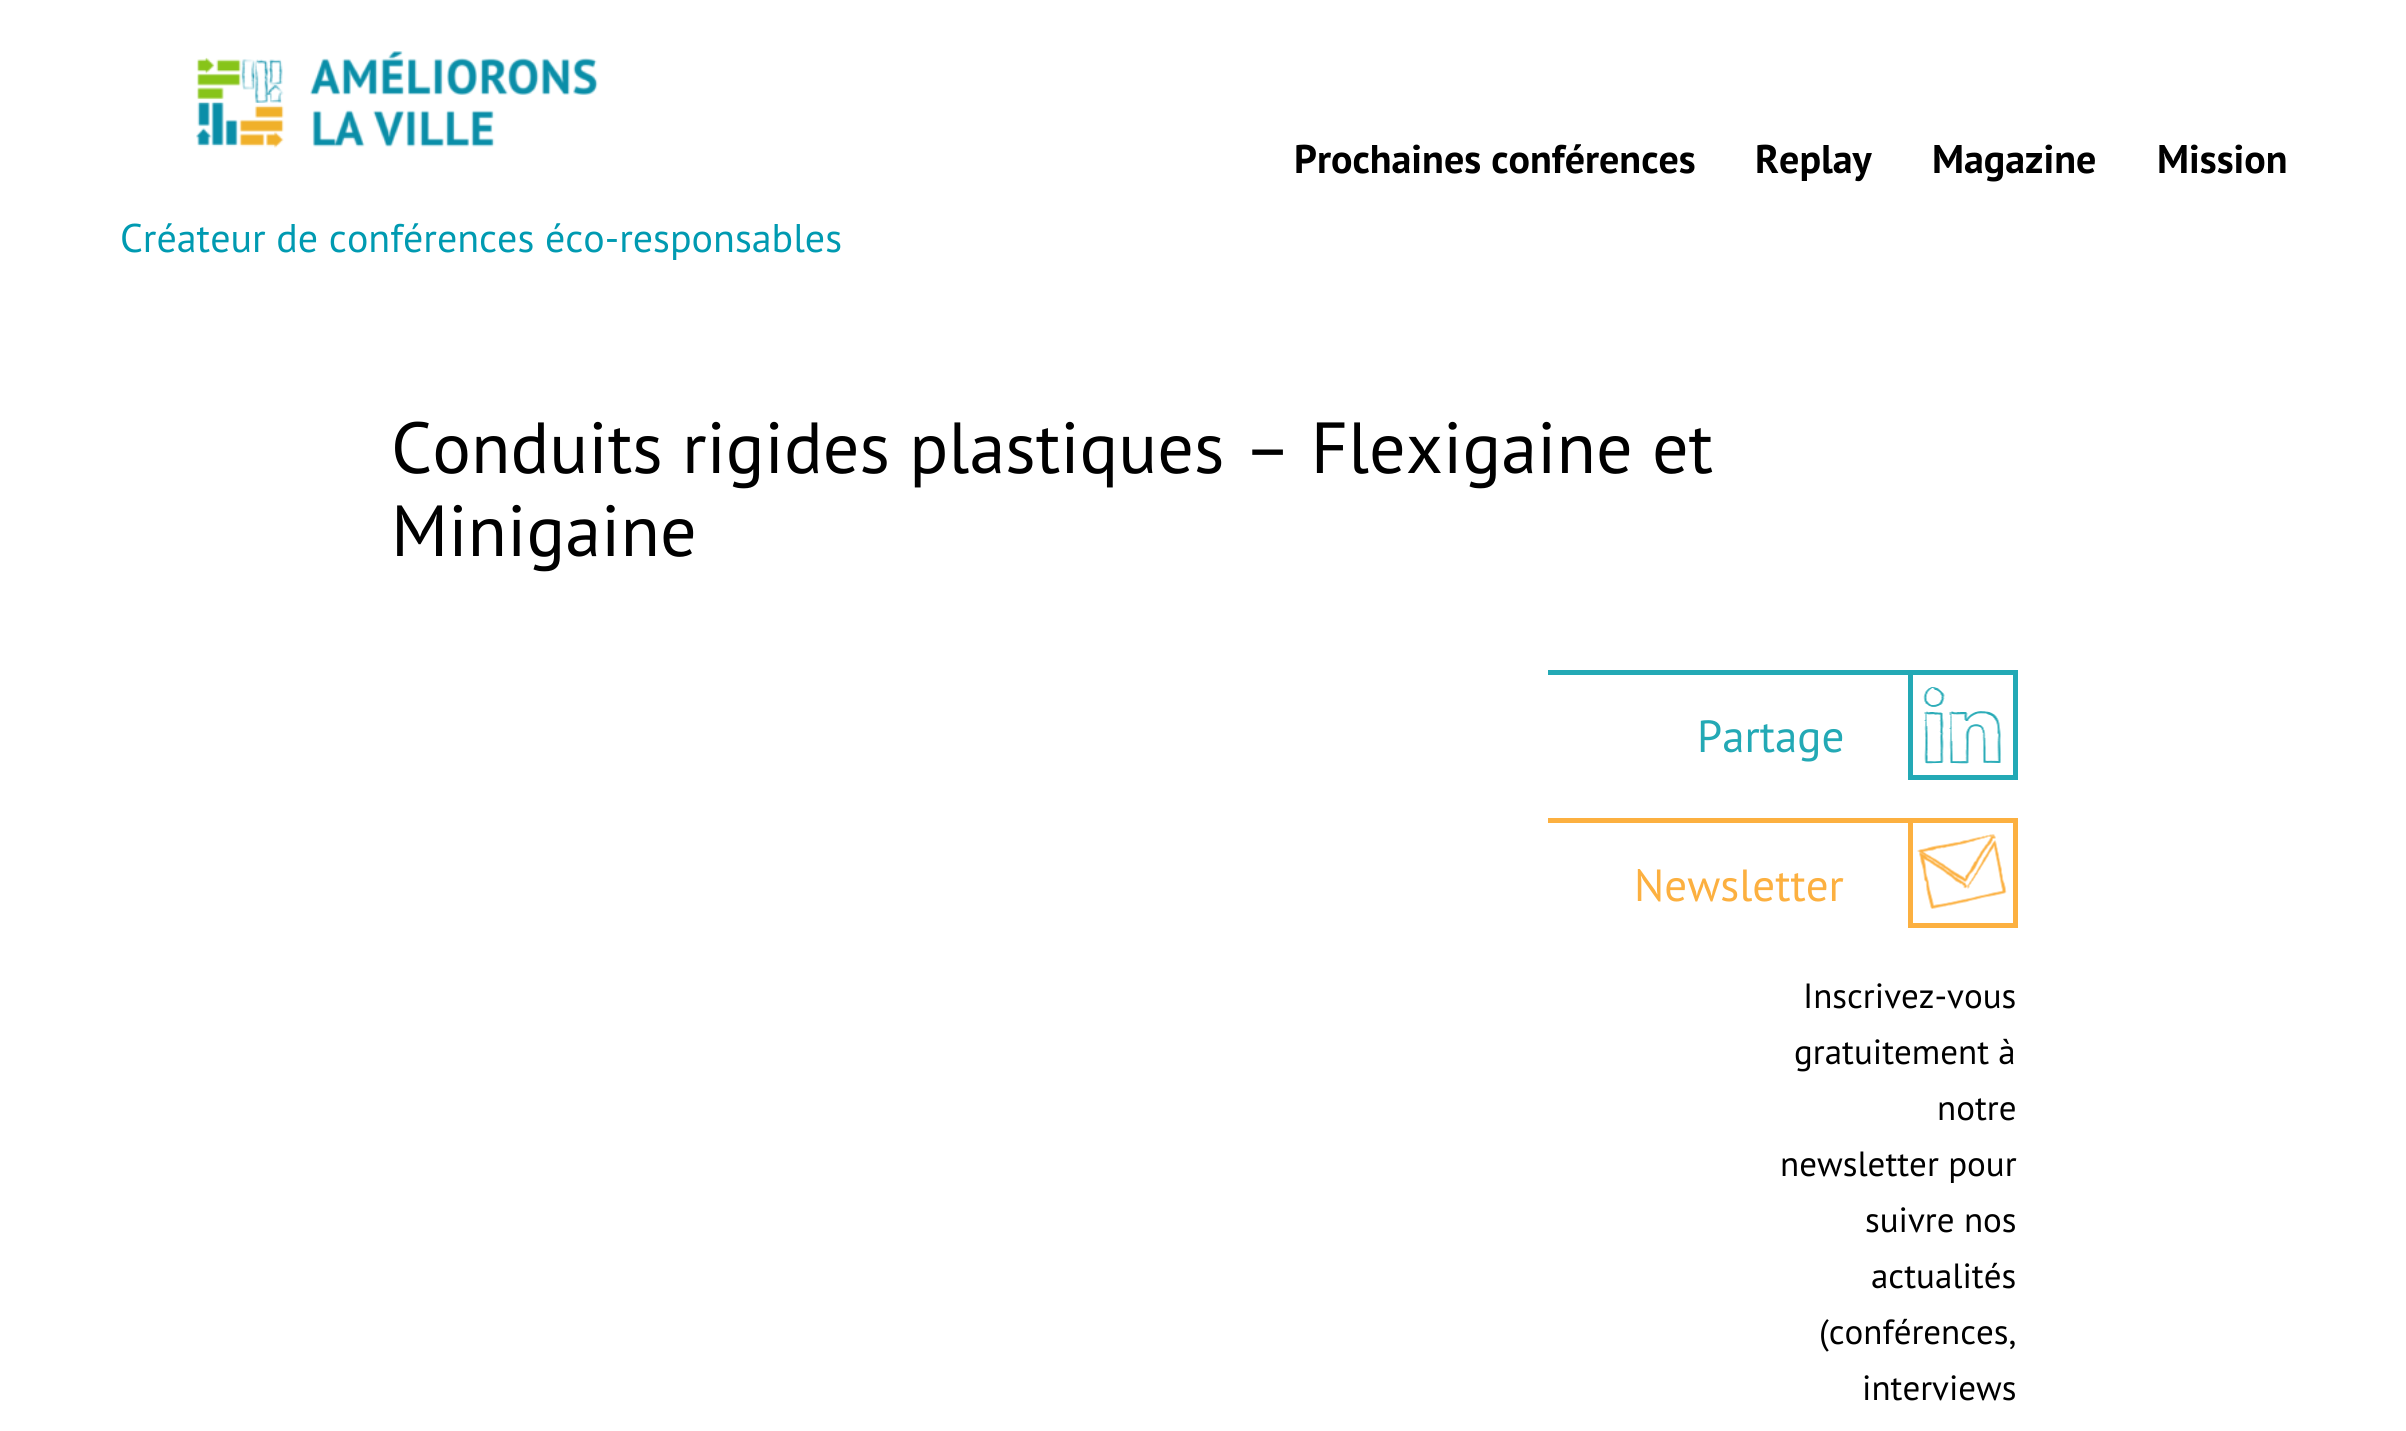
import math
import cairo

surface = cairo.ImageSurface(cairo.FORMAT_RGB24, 2406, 1431)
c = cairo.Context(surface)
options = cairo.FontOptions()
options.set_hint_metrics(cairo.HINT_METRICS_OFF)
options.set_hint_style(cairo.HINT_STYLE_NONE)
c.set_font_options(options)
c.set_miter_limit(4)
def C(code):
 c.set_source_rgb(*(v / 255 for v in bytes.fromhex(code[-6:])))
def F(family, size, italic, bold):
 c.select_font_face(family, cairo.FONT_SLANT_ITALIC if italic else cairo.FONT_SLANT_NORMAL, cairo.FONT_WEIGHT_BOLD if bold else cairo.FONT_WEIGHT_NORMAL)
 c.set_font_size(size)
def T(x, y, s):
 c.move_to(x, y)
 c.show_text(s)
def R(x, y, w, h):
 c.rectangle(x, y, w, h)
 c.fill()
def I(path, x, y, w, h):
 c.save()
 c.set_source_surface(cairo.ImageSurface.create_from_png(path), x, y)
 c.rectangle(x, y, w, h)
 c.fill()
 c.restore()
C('ffffff')
c.paint()
F('PT Sans',40,0,1)
C('000000')
T(1294,173,'Prochaines conférences')
T(1755,173,'Replay')
T(1932,173,'Magazine')
T(2157,173,'Mission')
I('1.png',196,51,402,97)
F('PT Sans',40,0,0)
C('009ab1')
T(120,252,'Créateur de conférences éco-responsables')
F('PT Sans',72.25,0,0)
C('000000')
T(391,473,'Conduits rigides plastiques – Flexigaine et')
T(391,556,'Minigaine')
C('23a9b5')
R(1548,670,360,5)
c.rectangle(1910.5,672.5,105,105)
c.set_line_width(5)
c.stroke()
F('PT Sans',45,0,0)
T(1697,752,'Partage')
I('2.png',1923,687,78,77)
C('fcb040')
R(1548,818,360,5)
c.rectangle(1910.5,820.5,105,105)
c.stroke()
T(1634,901,'Newsletter')
I('3.png',1917,834,90,75)
F('PT Sans',35,0,0)
C('000000')
T(1803,1008,'Inscrivez-vous')
T(1794,1064,'gratuitement à')
T(1937,1120,'notre')
T(1780,1176,'newsletter pour')
T(1865,1232,'suivre nos')
T(1871,1288,'actualités')
T(1819,1344,'(conférences,')
T(1862,1400,'interviews')
surface.write_to_png('o.png')
